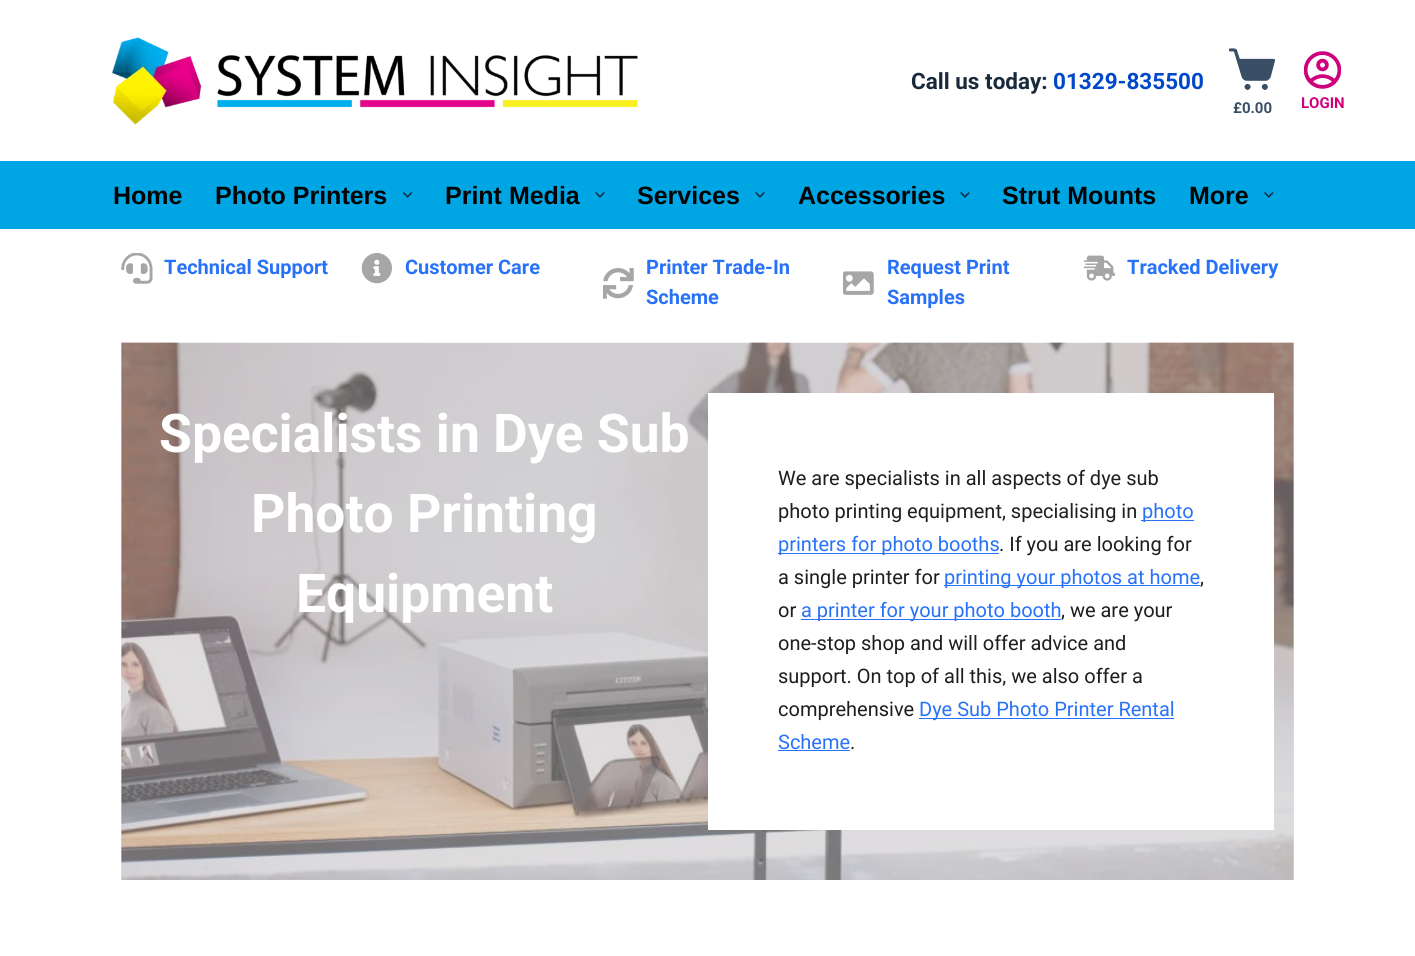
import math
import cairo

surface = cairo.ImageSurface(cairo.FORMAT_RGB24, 1415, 956)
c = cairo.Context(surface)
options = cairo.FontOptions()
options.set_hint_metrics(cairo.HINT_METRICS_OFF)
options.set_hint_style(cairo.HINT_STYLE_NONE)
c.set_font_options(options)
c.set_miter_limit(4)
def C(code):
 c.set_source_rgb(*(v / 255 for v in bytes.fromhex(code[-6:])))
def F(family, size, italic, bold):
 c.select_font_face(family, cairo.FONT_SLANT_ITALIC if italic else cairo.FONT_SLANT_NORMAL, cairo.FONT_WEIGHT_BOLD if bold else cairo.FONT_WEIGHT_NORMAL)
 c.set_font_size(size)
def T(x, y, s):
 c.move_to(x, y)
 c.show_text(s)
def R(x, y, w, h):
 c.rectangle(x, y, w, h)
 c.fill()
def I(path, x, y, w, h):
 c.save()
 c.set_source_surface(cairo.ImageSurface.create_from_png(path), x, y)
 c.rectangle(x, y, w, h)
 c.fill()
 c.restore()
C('ffffff')
c.paint()
C('e1dedf')
R(121,343,1173,537)
I('1.png',112,37,526,88)
F('Roboto',22.5,0,1)
C('192a3d')
T(911,89,'Call us today:')
C('0047ca')
T(1053,89,'01329-835500')
I('2.png',1229,48,46,42)
F('Roboto',15,0,1)
C('3a4f66')
T(1233,113,'£0.00')
I('3.png',1304,51,37,38)
C('ce007b')
T(1301,108,'LOGIN')
C('00a5e4')
R(0,161,1415,68)
F('Liberation Sans',25,0,1)
C('020202')
T(113,204,'Home')
T(215,204,'Photo Printers')
I('4.png',403,192,10,6)
T(445,204,'Print Media')
I('5.png',595,192,10,6)
T(637,204,'Services')
I('5.png',755,192,10,6)
T(798,204,'Accessories')
I('5.png',960,192,10,6)
T(1002,204,'Strut Mounts')
T(1189,204,'More')
I('6.png',1264,192,10,6)
I('7.png',121,253,32,31)
F('Roboto',20,0,1)
C('2872fa')
T(164,274,'Technical Support')
I('8.png',361,253,31,31)
T(405,274,'Customer Care')
I('9.png',603,268,31,31)
T(646,274,'Printer Trade-In')
T(646,304,'Scheme')
I('10.png',843,271,31,24)
T(887,274,'Request Print')
T(887,304,'Samples')
I('11.png',1084,255,31,26)
T(1127,274,'Tracked Delivery')
I('12.png',121,342,1173,538)
F('Roboto',53.4,0,1)
C('ffffff')
T(159,452,'Specialists in Dye Sub')
T(251,532,'Photo Printing')
T(296,612,'Equipment')
R(708,393,566,437)
F('Roboto',20,0,0)
C('1e1e1e')
T(778,485,'We are specialists in all aspects of dye sub')
T(778,518,'photo printing equipment, specialising in')
C('2872fa')
R(1141,520,53,1)
T(1142,518,'photo')
R(778,553,221,1)
T(778,551,'printers for photo booths')
C('1e1e1e')
T(999,551,'. If you are looking for')
T(778,584,'a single printer for')
C('2872fa')
R(944,585,256,1)
T(944,584,'printing your photos at home')
C('1e1e1e')
T(1200,584,',')
T(778,617,'or')
C('2872fa')
R(801,619,260,1)
T(801,617,'a printer for your photo booth')
C('1e1e1e')
T(1061,617,', we are your')
T(778,650,'one-stop shop and will offer advice and')
T(778,683,'support. On top of all this, we also offer a')
T(778,716,'comprehensive')
C('2872fa')
R(919,718,255,1)
T(919,716,'Dye Sub Photo Printer Rental')
T(778,749,'Scheme')
R(778,750,72,1)
C('1e1e1e')
T(850,749,'.')
surface.write_to_png('o.png')
